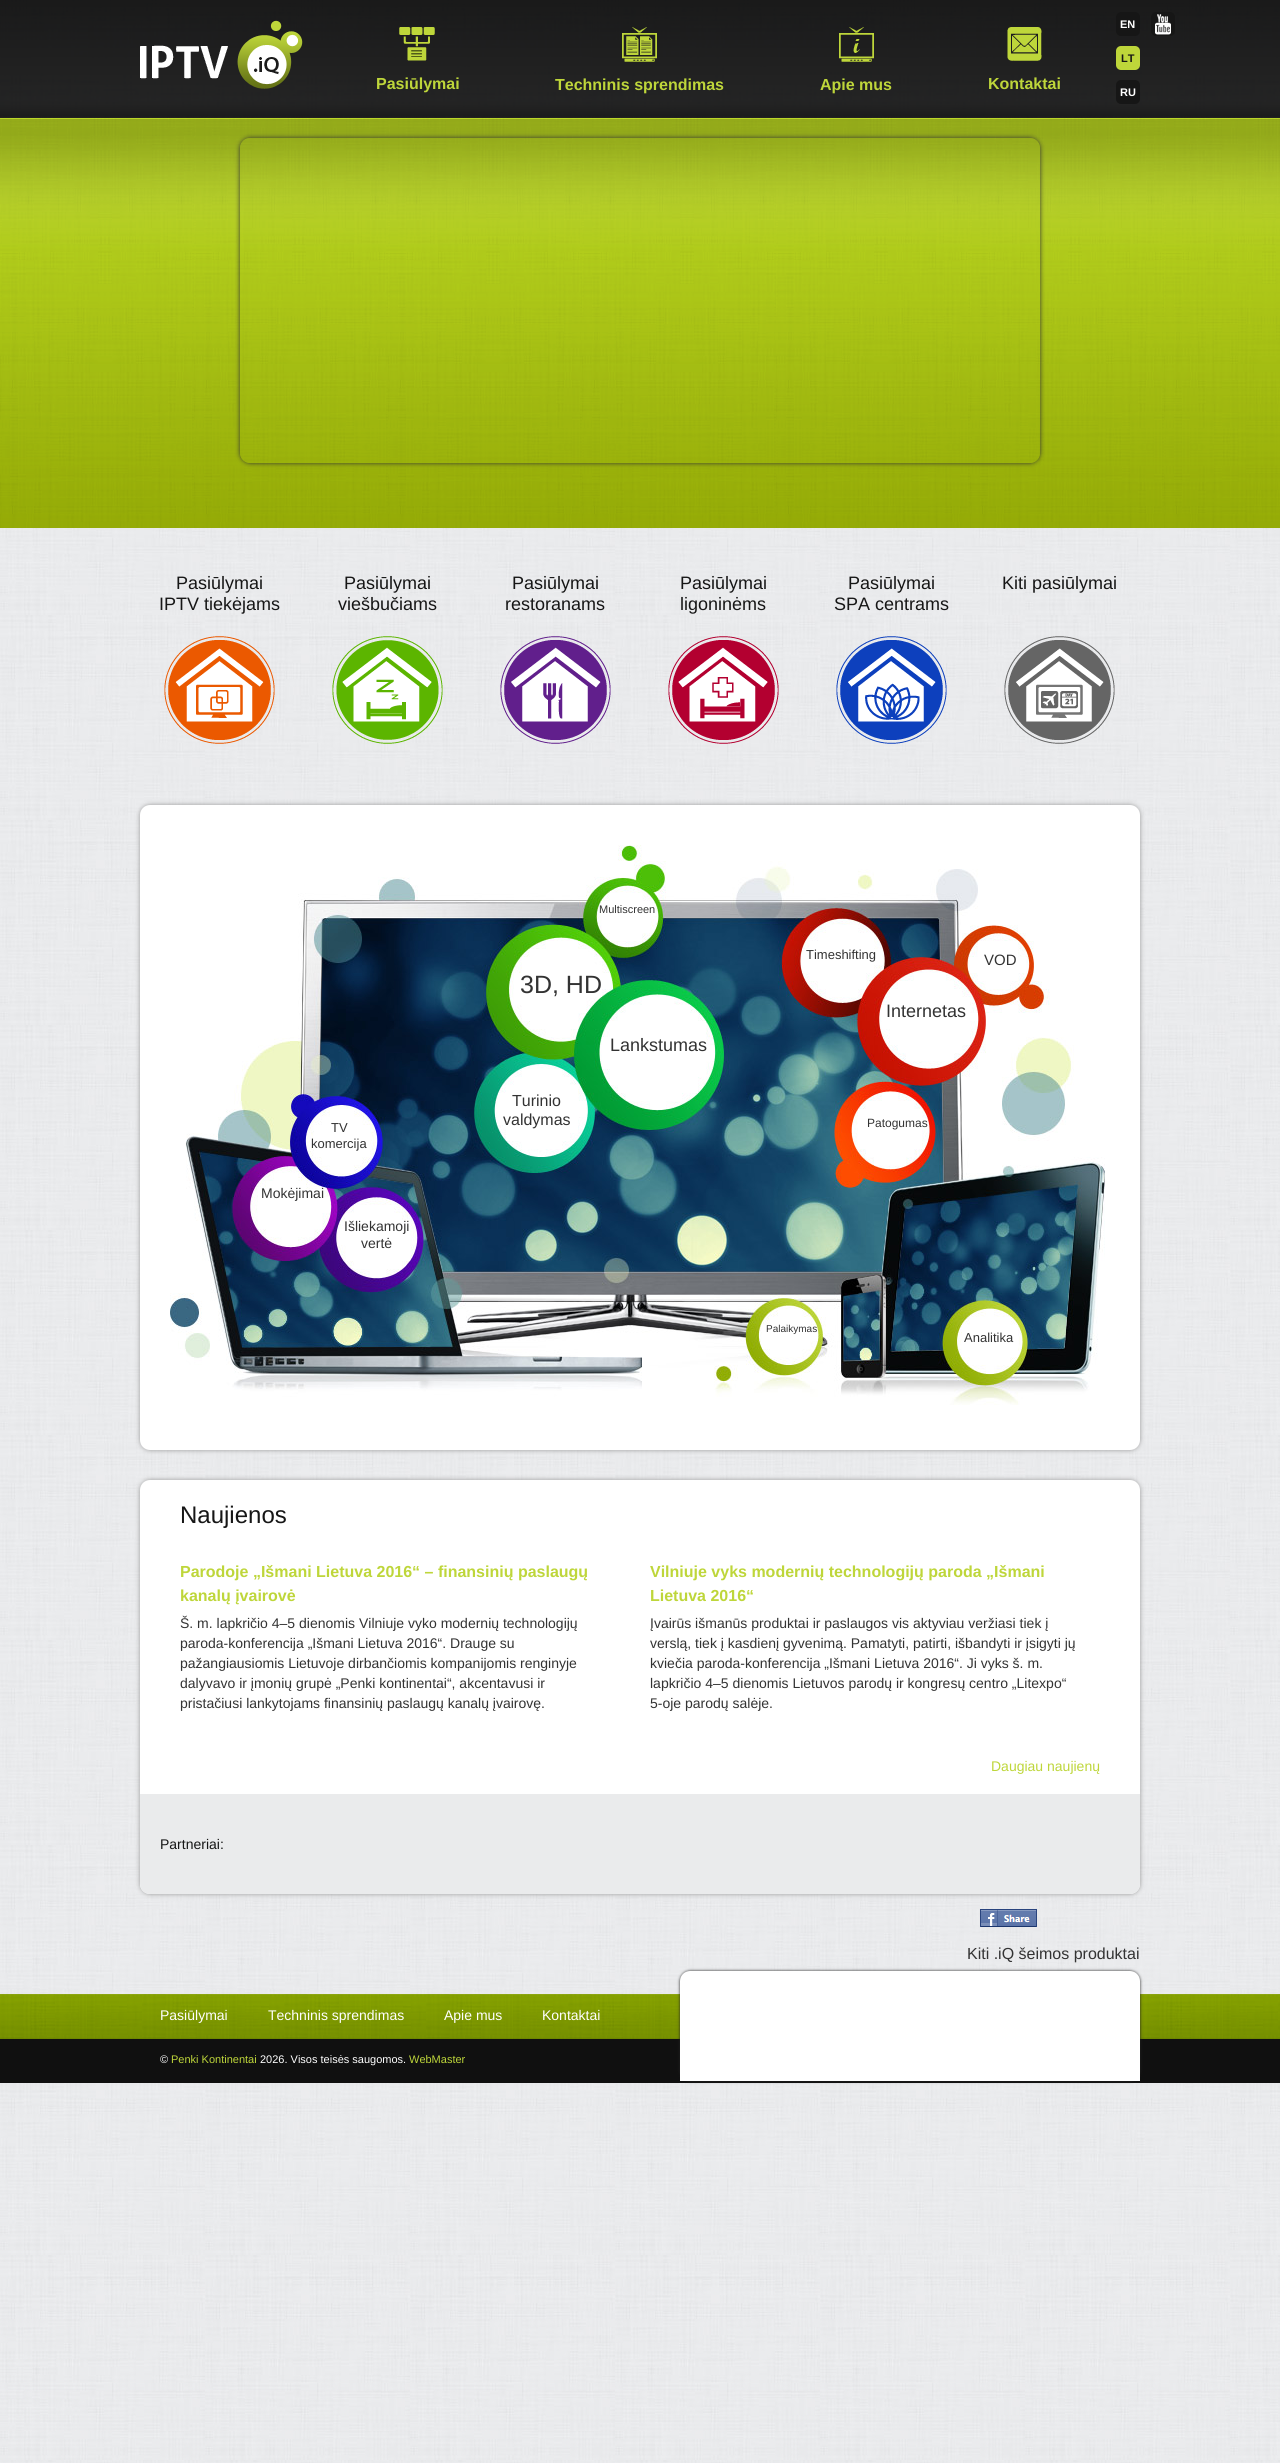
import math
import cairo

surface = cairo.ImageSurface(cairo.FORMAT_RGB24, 1280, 2463)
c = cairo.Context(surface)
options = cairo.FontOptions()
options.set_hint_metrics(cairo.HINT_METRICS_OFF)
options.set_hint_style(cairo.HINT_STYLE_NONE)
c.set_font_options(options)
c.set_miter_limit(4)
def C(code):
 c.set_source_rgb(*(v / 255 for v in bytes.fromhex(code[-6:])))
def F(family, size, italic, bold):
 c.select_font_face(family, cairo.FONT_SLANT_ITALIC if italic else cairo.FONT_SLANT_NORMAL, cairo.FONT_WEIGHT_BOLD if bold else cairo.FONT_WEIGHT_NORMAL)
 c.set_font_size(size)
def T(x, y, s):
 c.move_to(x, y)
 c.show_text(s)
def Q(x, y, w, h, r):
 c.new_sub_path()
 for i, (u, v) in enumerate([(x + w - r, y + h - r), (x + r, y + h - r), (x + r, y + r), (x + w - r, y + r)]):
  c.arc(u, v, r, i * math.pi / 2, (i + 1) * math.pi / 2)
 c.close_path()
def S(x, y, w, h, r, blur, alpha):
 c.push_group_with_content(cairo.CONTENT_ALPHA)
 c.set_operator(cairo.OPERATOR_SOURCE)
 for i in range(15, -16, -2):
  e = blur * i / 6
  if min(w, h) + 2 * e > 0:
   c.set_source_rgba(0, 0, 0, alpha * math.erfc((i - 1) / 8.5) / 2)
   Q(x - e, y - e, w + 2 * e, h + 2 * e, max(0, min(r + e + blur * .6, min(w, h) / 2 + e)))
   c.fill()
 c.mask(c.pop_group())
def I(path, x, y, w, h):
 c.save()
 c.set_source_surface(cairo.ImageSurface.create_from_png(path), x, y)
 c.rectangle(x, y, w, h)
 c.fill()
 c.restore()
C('ffffff')
c.paint()
I('1.png',0,528,1280,1935)
I('2.png',0,0,1280,118)
I('3.png',140,20,163,69)
I('4.png',399,27,36,34)
F('Liberation Sans',16,0,1)
C('bed63a')
T(376,89,'Pasiūlymai')
I('5.png',622,27,35,35)
T(555,90,'Techninis sprendimas')
I('6.png',839,27,35,35)
T(820,90,'Apie mus')
I('7.png',1007,27,35,34)
T(988,89,'Kontaktai')
C('161616')
Q(1116,12,24,24,5)
c.fill()
F('Liberation Sans',11,0,1)
C('ffffff')
T(1120,28,'EN')
C('bed63a')
Q(1116,46,24,24,5)
c.fill()
C('161616')
T(1121,62,'LT')
Q(1116,80,24,24,5)
c.fill()
C('ffffff')
T(1120,96,'RU')
C('161616')
Q(1151,12,24,24,5)
c.fill()
I('8.png',1155,14,16,21)
I('9.png',0,118,1280,410)
c.save()
c.set_fill_rule(cairo.FILL_RULE_EVEN_ODD)
c.new_path()
c.move_to(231,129)
c.line_to(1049,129)
c.line_to(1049,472)
c.line_to(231,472)
c.close_path()
c.move_to(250,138)
c.line_to(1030,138)
c.curve_to(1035.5,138,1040,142.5,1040,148)
c.line_to(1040,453)
c.curve_to(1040,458.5,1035.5,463,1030,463)
c.line_to(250,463)
c.curve_to(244.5,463,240,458.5,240,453)
c.line_to(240,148)
c.curve_to(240,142.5,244.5,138,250,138)
c.close_path()
c.clip()
C('333333')
S(240,138,800,325,10,2.5,1)
c.restore()
F('Liberation Sans',18,0,0)
T(176,589,'Pasiūlymai')
T(159,610,'IPTV tiekėjams')
I('10.png',164,636,111,108)
T(344,589,'Pasiūlymai')
T(338,610,'viešbučiams')
I('11.png',332,636,111,108)
T(512,589,'Pasiūlymai')
T(505,610,'restoranams')
I('12.png',500,636,111,108)
T(680,589,'Pasiūlymai')
T(680,610,'ligoninėms')
I('13.png',668,636,111,108)
T(848,589,'Pasiūlymai')
T(834,610,'SPA centrams')
I('14.png',836,636,111,108)
T(1002,589,'Kiti pasiūlymai')
I('15.png',1004,636,111,108)
C('999999')
S(140,805,1000,645,10,2.5,1)
C('ffffff')
Q(140,805,1000,645,10)
c.fill()
I('16.png',170,845,935,560)
F('Liberation Sans',11,0,0)
C('333333')
T(599,913,'Multiscreen')
F('Liberation Sans',13,0,0)
T(806,959,'Timeshifting')
F('Liberation Sans',15,0,0)
T(984,965,'VOD')
F('Liberation Sans',25,0,0)
T(520,993,'3D, HD')
F('Liberation Sans',18,0,0)
T(886,1017,'Internetas')
T(610,1051,'Lankstumas')
F('Liberation Sans',13,0,0)
T(331,1132,'TV')
T(311,1148,'komercija')
F('Liberation Sans',16,0,0)
T(512,1106,'Turinio')
T(503,1125,'valdymas')
F('Liberation Sans',12,0,0)
T(867,1127,'Patogumas')
F('Liberation Sans',14,0,0)
T(261,1198,'Mokėjimai')
T(344,1231,'Išliekamoji')
T(361,1248,'vertė')
F('Liberation Sans',10,0,0)
T(766,1332,'Palaikymas')
F('Liberation Sans',13,0,0)
T(964,1342,'Analitika')
C('999999')
S(140,1480,1000,414,10,2.5,1)
C('ffffff')
Q(140,1480,1000,414,10)
c.fill()
F('Liberation Sans',24,0,0)
C('161616')
T(180,1523,'Naujienos')
F('Liberation Sans',16,0,1)
C('bed63a')
T(180,1577,'Parodoje „Išmani Lietuva 2016“ – finansinių paslaugų')
T(180,1601,'kanalų įvairovė')
F('Liberation Sans',14,0,0)
C('333333')
T(180,1628,'Š. m. lapkričio 4–5 dienomis Vilniuje vyko modernių technologijų')
T(180,1648,'paroda-konferencija „Išmani Lietuva 2016“. Drauge su')
T(180,1668,'pažangiausiomis Lietuvoje dirbančiomis kompanijomis renginyje')
T(180,1688,'dalyvavo ir įmonių grupė „Penki kontinentai“, akcentavusi ir')
T(180,1708,'pristačiusi lankytojams finansinių paslaugų kanalų įvairovę.')
F('Liberation Sans',16,0,1)
C('bed63a')
T(650,1577,'Vilniuje vyks modernių technologijų paroda „Išmani')
T(650,1601,'Lietuva 2016“')
F('Liberation Sans',14,0,0)
C('333333')
T(650,1628,'Įvairūs išmanūs produktai ir paslaugos vis aktyviau veržiasi tiek į')
T(650,1648,'verslą, tiek į kasdienį gyvenimą. Pamatyti, patirti, išbandyti ir įsigyti jų')
T(650,1668,'kviečia paroda-konferencija „Išmani Lietuva 2016“. Ji vyks š. m.')
T(650,1688,'lapkričio 4–5 dienomis Lietuvos parodų ir kongresų centro „Litexpo“')
T(650,1708,'5-oje parodų salėje.')
C('bed63a')
T(991,1771,'Daugiau naujienų')
C('eaebec')
c.new_path()
c.move_to(140,1794)
c.line_to(1140,1794)
c.line_to(1140,1884)
c.curve_to(1140,1889.5,1135.5,1894,1130,1894)
c.line_to(150,1894)
c.curve_to(144.5,1894,140,1889.5,140,1884)
c.close_path()
c.fill()
C('161616')
T(160,1849,'Partneriai:')
I('17.png',980,1909,57,18)
I('18.png',0,1994,1280,89)
F('Liberation Sans',16,0,0)
C('333333')
T(967,1959,'Kiti .iQ šeimos produktai')
F('Liberation Sans',14,0,0)
C('ffffff')
T(160,2020,'Pasiūlymai')
T(268,2020,'Techninis sprendimas')
T(444,2020,'Apie mus')
T(542,2020,'Kontaktai')
C('222222')
S(680,1971,460,110,10,1.5,1)
C('ffffff')
c.new_path()
c.move_to(690,1971)
c.line_to(1130,1971)
c.curve_to(1135.5,1971,1140,1975.5,1140,1981)
c.line_to(1140,2081)
c.line_to(680,2081)
c.line_to(680,1981)
c.curve_to(680,1975.5,684.5,1971,690,1971)
c.close_path()
c.fill()
F('Liberation Sans',11,0,0)
T(160,2063,'©')
C('bed63a')
T(171,2063,'Penki Kontinentai')
C('ffffff')
T(260,2063,'2026. Visos teisės saugomos.')
C('bed63a')
T(409,2063,'WebMaster')
surface.write_to_png('o.png')
